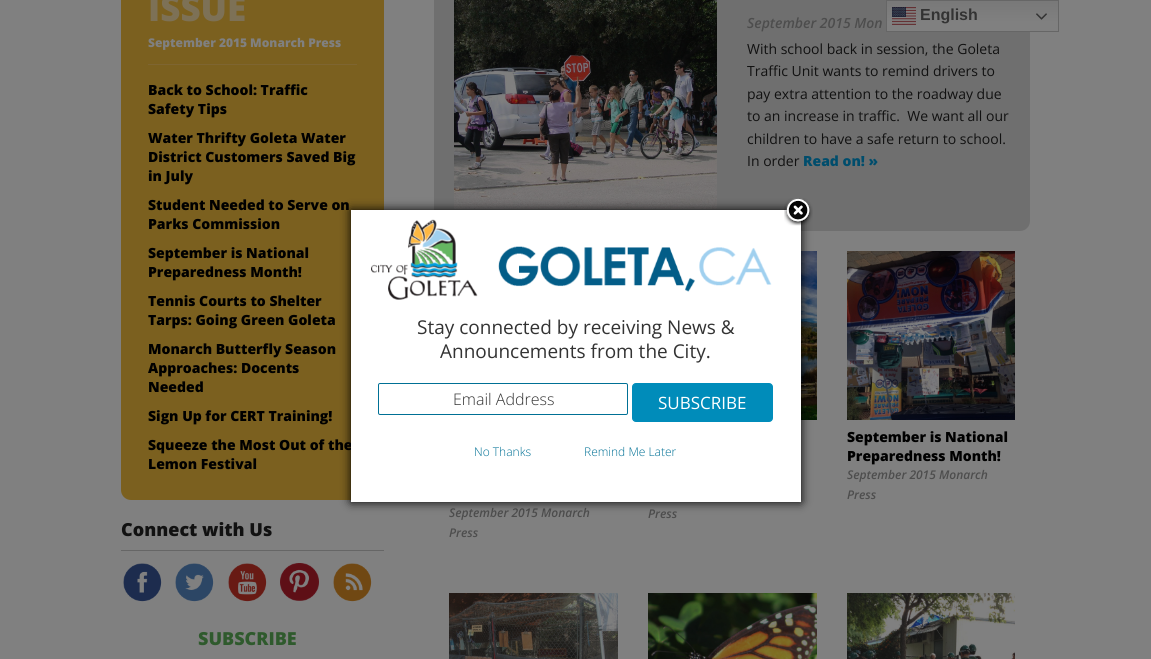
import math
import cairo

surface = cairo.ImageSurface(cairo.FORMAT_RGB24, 1151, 659)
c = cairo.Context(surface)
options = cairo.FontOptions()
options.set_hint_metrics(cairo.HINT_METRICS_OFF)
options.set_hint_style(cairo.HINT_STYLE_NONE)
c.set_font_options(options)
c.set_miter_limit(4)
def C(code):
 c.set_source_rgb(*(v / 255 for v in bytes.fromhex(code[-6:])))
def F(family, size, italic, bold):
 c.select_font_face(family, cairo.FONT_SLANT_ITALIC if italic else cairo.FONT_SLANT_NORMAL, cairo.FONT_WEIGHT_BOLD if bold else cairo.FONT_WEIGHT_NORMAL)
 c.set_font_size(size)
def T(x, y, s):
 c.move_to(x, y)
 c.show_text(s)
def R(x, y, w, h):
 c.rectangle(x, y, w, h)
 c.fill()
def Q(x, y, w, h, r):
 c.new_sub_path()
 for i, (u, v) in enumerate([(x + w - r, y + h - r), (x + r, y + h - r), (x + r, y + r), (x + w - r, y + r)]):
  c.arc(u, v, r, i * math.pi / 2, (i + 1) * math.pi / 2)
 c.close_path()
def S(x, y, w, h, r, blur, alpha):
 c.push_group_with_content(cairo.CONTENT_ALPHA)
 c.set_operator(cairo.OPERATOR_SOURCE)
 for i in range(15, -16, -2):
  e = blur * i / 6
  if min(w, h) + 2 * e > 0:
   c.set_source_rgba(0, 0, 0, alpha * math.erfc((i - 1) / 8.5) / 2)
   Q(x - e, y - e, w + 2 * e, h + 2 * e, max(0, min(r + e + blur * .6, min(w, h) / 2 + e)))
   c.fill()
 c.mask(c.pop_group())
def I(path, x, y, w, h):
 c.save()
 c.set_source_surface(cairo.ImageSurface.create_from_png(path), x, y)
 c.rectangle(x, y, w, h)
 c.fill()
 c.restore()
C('808080')
c.paint()
C('7b601f')
Q(121,-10,263,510,10)
c.fill()
F('Open Sans ExtraBold',35,0,0)
C('7d7156')
T(148,21,'ISSUE')
C('7e6531')
R(148,64,209,1)
F('Open Sans ExtraBold',12,0,0)
C('808080')
T(148,47,'September 2015 Monarch Press')
F('Open Sans ExtraBold',14,0,0)
C('000000')
T(148,95,'Back to School: Traffic')
T(148,114,'Safety Tips')
T(148,143,'Water Thrifty Goleta Water')
T(148,162,'District Customers Saved Big')
T(148,181,'in July')
T(148,210,'Student Needed to Serve on')
T(148,229,'Parks Commission')
T(148,258,'September is National')
T(148,277,'Preparedness Month!')
T(148,306,'Tennis Courts to Shelter')
T(148,325,'Tarps: Going Green Goleta')
T(148,354,'Monarch Butterfly Season')
T(148,373,'Approaches: Docents')
T(148,392,'Needed')
T(148,421,'Sign Up for CERT Training!')
T(148,450,'Squeeze the Most Out of the')
T(148,469,'Lemon Festival')
C('666666')
R(121,550,263,1)
F('Open Sans ExtraBold',18,0,0)
C('111111')
T(121,536,'Connect with Us')
I('1.png',123,563,39,39)
I('2.png',175,563,39,39)
I('3.png',228,563,39,39)
I('4.png',280,563,39,38)
I('5.png',333,563,39,39)
C('2f5a2d')
T(198,645,'SUBSCRIBE')
C('6f6f6f')
Q(434,-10,596,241,10)
c.fill()
I('6.png',454,0,263,209)
F('Open Sans SemiBold',14,1,0)
C('4d4d4d')
T(747,28,'September 2015 Mon')
F('Open Sans',14,0,0)
C('111111')
T(747,54,'With school back in session, the Goleta')
T(747,76,'Traffic Unit wants to remind drivers to')
T(747,99,'pay extra attention to the roadway due')
T(747,121,'to an increase in traffic.  We want all our')
T(747,144,'children to have a safe return to school.')
T(747,166,'In order')
F('Open Sans ExtraBold',14,0,0)
C('004d6c')
T(803,166,'Read on! »')
I('7.png',847,251,168,169)
C('000000')
T(847,442,'September is National')
T(847,461,'Preparedness Month!')
F('Open Sans SemiBold',12,1,0)
C('4d4d4d')
T(847,479,'September 2015 Monarch')
T(847,499,'Press')
T(449,517,'September 2015 Monarch')
T(449,537,'Press')
I('8.png',801,251,16,169)
T(648,518,'Press')
I('9.png',449,593,169,66)
I('10.png',648,593,169,66)
I('11.png',847,593,168,66)
gradient = cairo.LinearGradient(973,0,973,32)
gradient.add_color_stop_rgba(0,0.471,0.471,0.471,1)
gradient.add_color_stop_rgba(.7,0.502,0.502,0.502,1)
c.set_source(gradient)
R(887,1,171,30)
c.rectangle(886.5,.5,172,31)
C('666666')
c.set_line_width(1)
c.stroke()
I('12.png',892,7,24,18)
F('Liberation Sans',16,0,1)
C('333333')
T(920,20,'English')
I('13.png',1036,13,11,7)
C('000000')
S(351,210,450,292,0,5,1)
C('ffffff')
R(351,210,450,292)
I('14.png',784,198,29,28)
I('15.png',371,219,401,81)
F('Open Sans',19,0,0)
C('333333')
T(417,334,'Stay connected by receiving News &')
T(440,358,'Announcements from the City.')
Q(378.5,383.5,249,31,1.5)
C('007095')
c.stroke()
F('Open Sans Light',16,0,0)
C('333333')
T(453,405,'Email Address')
C('008cba')
Q(632.5,383.5,140,38,3.5)
c.fill_preserve()
c.stroke()
F('Open Sans',17,0,0)
C('ffffff')
T(658,409,'SUBSCRIBE')
F('Open Sans Light',12,0,0)
C('007095')
T(474,456,'No Thanks')
T(584,456,'Remind Me Later')
surface.write_to_png('o.png')
